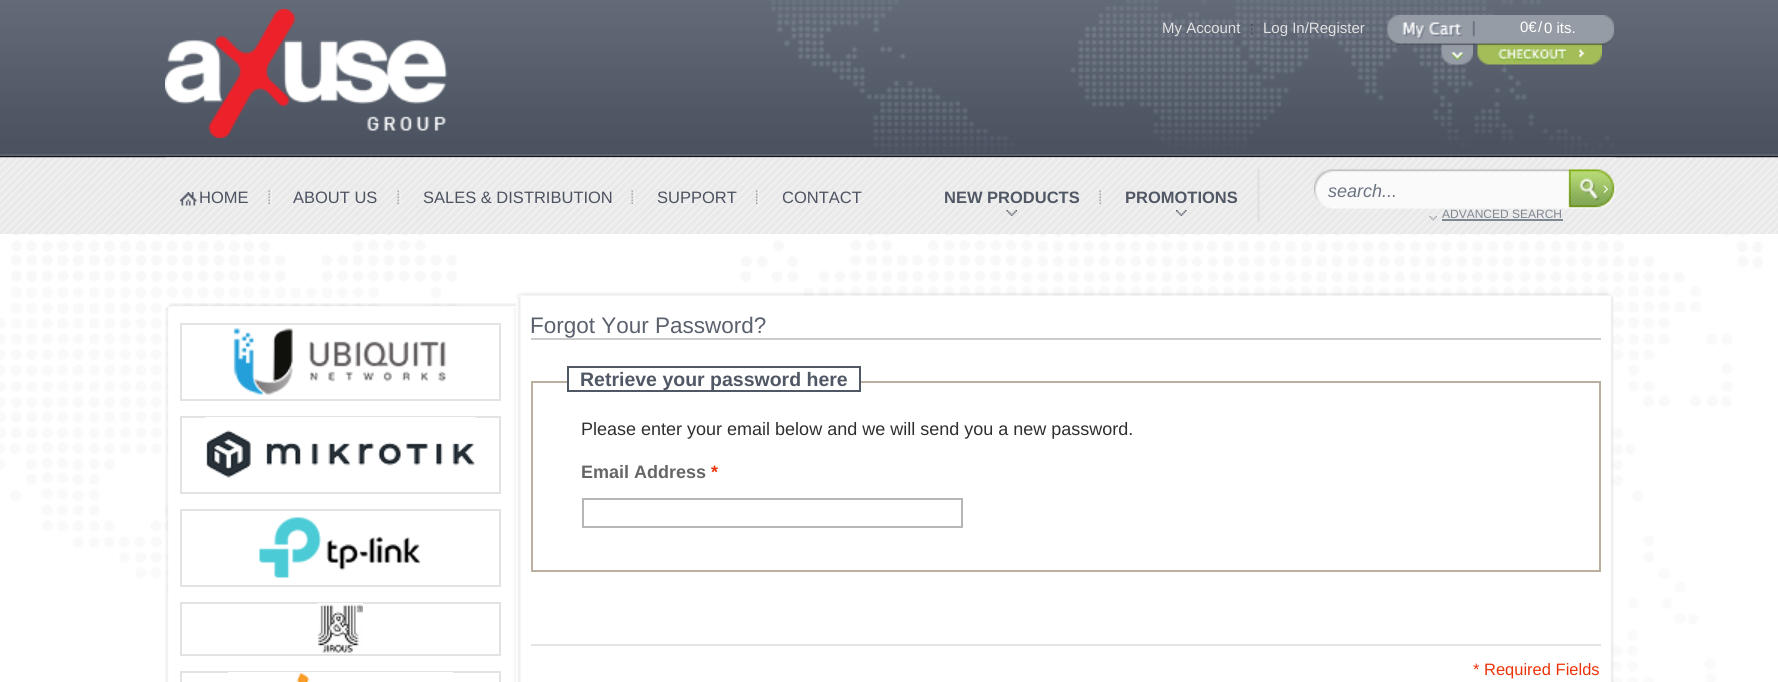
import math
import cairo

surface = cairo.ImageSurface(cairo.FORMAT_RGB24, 1778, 682)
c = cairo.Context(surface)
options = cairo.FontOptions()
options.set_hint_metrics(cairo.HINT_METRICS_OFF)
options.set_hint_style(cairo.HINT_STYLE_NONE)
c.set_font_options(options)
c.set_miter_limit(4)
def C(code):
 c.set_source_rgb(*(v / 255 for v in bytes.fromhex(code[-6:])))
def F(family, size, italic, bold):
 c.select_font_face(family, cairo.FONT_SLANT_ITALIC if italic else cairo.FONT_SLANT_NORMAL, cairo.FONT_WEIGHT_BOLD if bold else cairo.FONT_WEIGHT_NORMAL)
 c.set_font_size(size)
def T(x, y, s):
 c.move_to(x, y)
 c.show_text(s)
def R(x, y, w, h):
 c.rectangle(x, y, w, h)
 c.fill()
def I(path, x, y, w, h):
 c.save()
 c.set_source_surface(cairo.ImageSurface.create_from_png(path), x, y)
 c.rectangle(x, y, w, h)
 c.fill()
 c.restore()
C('ffffff')
c.paint()
I('1.png',0,0,1778,158)
I('2.png',771,0,843,153)
I('3.png',165,9,283,129)
I('4.png',1251,24,2,11)
F('Liberation Sans',15,0,0)
C('e2e1e1')
T(1162,33,'My Account')
T(1263,33,'Log In/Register')
I('6.png',1441,43,32,22)
I('7.png',1477,43,125,22)
I('5.png',1387,15,227,30)
C('ffffff')
T(1520,32,'0€')
T(1538,32,'/')
T(1544,33,'0 its.')
I('8.png',0,157,1778,77)
I('9.png',165,157,1451,1)
c.set_source_rgba(0.875,0.878,0.878,0.81)
R(1257,169,3,53)
I('10.png',268,190,4,14)
I('11.png',180,192,17,14)
F('Liberation Sans',16.5,0,0)
C('4c5260')
T(199,203,'HOME')
I('12.png',397,190,4,14)
T(293,203,'ABOUT US')
I('13.png',631,190,4,14)
T(423,203,'SALES & DISTRIBUTION')
I('14.png',756,190,3,14)
T(657,203,'SUPPORT')
T(782,203,'CONTACT')
I('15.png',1099,190,4,14)
F('Liberation Sans',16.5,0,1)
C('515865')
T(944,203,'NEW PRODUCTS')
I('16.png',1006,210,11,6)
T(1125,203,'PROMOTIONS')
I('17.png',1176,210,11,6)
I('18.png',1314,169,302,40)
F('Liberation Sans',18,1,0)
C('6a7381')
T(1328,197,'search...')
I('19.png',1603,185,5,8)
I('20.png',1429,216,8,5)
F('Liberation Sans',12,0,0)
C('7f8791')
T(1442,218,'ADVANCED SEARCH')
R(1442,219,121,2)
I('21.png',0,234,1763,448)
I('22.png',169,303,347,5)
I('23.png',165,307,351,375)
c.rectangle(181,324,319,76)
C('e3e3e3')
c.stroke()
I('24.png',233,328,213,67)
c.rectangle(181,417,319,76)
c.stroke()
I('25.png',205,417,271,61)
c.rectangle(181,510,319,76)
c.stroke()
I('26.png',259,517,162,61)
c.rectangle(181,603,319,52)
c.stroke()
I('27.png',318,603,45,51)
c.rectangle(181,672,319,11)
c.stroke()
I('28.png',228,672,225,10)
I('29.png',516,292,1097,5)
I('30.png',517,297,1097,385)
C('cccccc')
R(531,338,1070,2)
F('Liberation Sans',22.5,0,0)
C('5a616c')
T(530,333,'Forgot Your Password?')
c.rectangle(532,382,1068,189)
C('bbafa0')
c.stroke()
C('ffffff')
R(569,381,290,2)
c.rectangle(568,367,292,24)
C('515865')
c.stroke()
F('Liberation Sans',19.5,0,1)
T(580,386,'Retrieve your password here')
F('Liberation Sans',18,0,0)
C('2f2f2f')
T(581,435,'Please enter your email below and we will send you a new password.')
F('Liberation Sans',18,0,1)
C('666666')
T(581,478,'Email Address')
C('eb340a')
T(711,478,'*')
c.rectangle(583,499,379,28)
C('b6b6b6')
c.stroke()
C('e4e4e4')
R(531,644,1070,2)
F('Liberation Sans',16.5,0,0)
C('eb340a')
T(1473,675,'* Required Fields')
surface.write_to_png('o.png')
